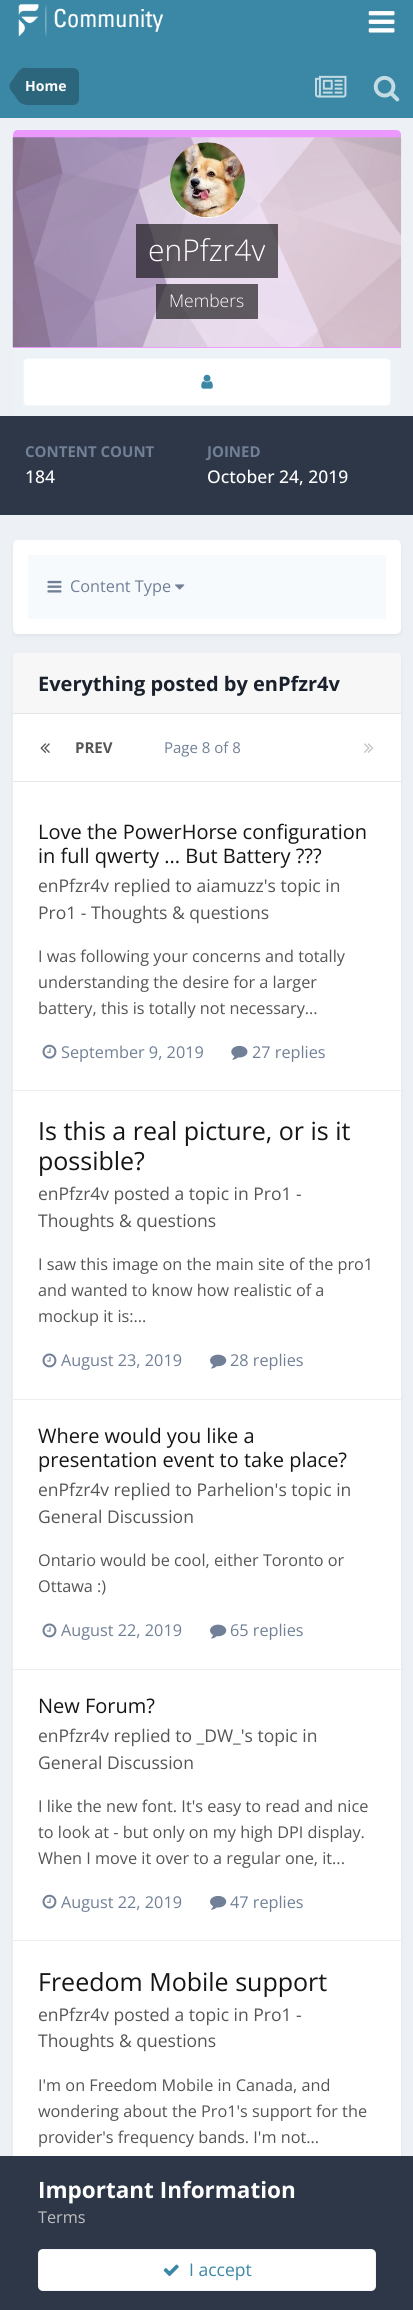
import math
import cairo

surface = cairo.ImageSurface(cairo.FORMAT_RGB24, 413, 2310)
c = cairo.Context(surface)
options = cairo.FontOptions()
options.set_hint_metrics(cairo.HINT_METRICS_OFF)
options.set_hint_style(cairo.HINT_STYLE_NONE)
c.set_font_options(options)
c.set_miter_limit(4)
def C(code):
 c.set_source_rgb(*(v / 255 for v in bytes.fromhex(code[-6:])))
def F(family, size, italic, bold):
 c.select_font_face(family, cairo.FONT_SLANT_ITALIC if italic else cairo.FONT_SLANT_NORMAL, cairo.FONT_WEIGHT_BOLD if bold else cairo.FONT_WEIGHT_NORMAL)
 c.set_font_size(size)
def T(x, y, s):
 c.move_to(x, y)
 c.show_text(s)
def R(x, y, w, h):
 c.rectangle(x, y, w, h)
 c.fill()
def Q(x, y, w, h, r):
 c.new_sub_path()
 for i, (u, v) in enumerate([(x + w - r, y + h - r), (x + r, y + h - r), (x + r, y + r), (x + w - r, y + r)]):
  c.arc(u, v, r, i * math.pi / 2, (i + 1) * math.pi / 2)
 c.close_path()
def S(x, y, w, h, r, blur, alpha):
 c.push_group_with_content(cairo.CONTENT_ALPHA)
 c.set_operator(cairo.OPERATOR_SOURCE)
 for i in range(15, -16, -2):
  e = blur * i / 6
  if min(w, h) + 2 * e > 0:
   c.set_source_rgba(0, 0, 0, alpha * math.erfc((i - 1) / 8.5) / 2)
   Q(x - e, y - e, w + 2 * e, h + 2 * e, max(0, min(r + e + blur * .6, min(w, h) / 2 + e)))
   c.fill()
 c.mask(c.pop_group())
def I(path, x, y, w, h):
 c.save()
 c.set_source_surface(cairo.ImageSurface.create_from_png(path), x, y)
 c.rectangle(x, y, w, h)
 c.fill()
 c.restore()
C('edf0f4')
c.paint()
C('3a88a5')
R(0,0,413,118)
I('1.png',18,4,146,33)
I('2.png',368,11,27,22)
C('2c667c')
c.new_path()
c.move_to(25,68)
c.line_to(73,68)
c.curve_to(76.5,68,79,70.5,79,74)
c.line_to(79,99)
c.curve_to(79,102.5,76.5,105,73,105)
c.line_to(25,105)
c.close_path()
c.fill()
c.new_path()
c.move_to(25,104.5)
c.curve_to(19.5,104.5,16.5,98,14,94.5)
c.curve_to(12,92,9.5,89.5,9.5,86)
c.line_to(25,86)
c.close_path()
c.move_to(25,67.5)
c.line_to(25,86)
c.line_to(9.5,86)
c.curve_to(9,84,11.5,81.5,12.5,80)
c.curve_to(15.5,76,19.5,67.5,25,67.5)
c.close_path()
c.fill()
F('Open Sans',14,0,1)
C('ffffff')
T(25,91,'Home')
I('3.png',315,75,32,23)
I('4.png',373,75,27,27)
C('ec99ff')
c.new_path()
c.move_to(18,130)
c.line_to(396,130)
c.curve_to(399,130,401,132,401,135)
c.line_to(401,348)
c.line_to(13,348)
c.line_to(13,135)
c.curve_to(13,132,15,130,18,130)
c.close_path()
c.fill()
I('5.png',12,137,390,211)
C('ffffff')
c.arc(207.5,180.5,37.5,0,2 * math.pi)
c.fill()
I('6.png',170,142,75,76)
c.set_source_rgba(0,0,0,0.6)
R(136,224,142,54)
F('Open Sans Light',30,0,0)
C('ffffff')
T(148,261,'enPfzr4v')
c.set_source_rgba(0,0,0,0.6)
R(156,284,102,35)
F('Open Sans Light',17.5,0,0)
C('ffffff')
T(169,307,'Members')
C('edf2f7')
R(13,348,388,68)
C('ffffff')
Q(23,358,368,48,5)
c.fill()
Q(23.5,358.5,367,47,4.5)
c.set_source_rgba(0.227,0.533,0.647,0.07)
c.set_line_width(1)
c.stroke()
I('7.png',201,374,12,15)
C('2d3748')
R(0,416,413,99)
F('Open Sans',15,0,1)
C('718096')
T(25,457,'CONTENT COUNT')
F('Open Sans Medium',17.5,0,0)
C('ffffff')
T(25,483,'184')
F('Open Sans',15,0,1)
C('718096')
T(207,457,'JOINED')
F('Open Sans Medium',17.5,0,0)
C('ffffff')
T(207,483,'October 24, 2019')
C('2d3748')
S(14,544,386,91,4,2.5,.1)
C('ffffff')
Q(13,540,388,94,5)
c.fill()
C('f7fafc')
R(28,555,358,64)
I('8.png',47,580,15,13)
F('Open Sans',16.25,0,0)
C('718096')
T(70,592,'Content Type')
I('9.png',175,584,10,6)
C('2d3748')
S(14,656,386,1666,4,2.5,.1)
C('ffffff')
Q(13,653,388,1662,5)
c.fill()
C('f7f7f7')
c.new_path()
c.move_to(18,653)
c.line_to(396,653)
c.curve_to(399,653,401,655,401,658)
c.line_to(401,714)
c.line_to(13,714)
c.line_to(13,658)
c.curve_to(13,655,15,653,18,653)
c.close_path()
c.fill()
C('e3e5e8')
R(13,713,388,1)
F('Open Sans',20,0,1)
C('1a202c')
T(38,691,'Everything posted by enPfzr4v')
C('e6e6e6')
R(13,781,388,1)
I('10.png',40,743,10,10)
F('Open Sans',15,0,1)
C('555555')
T(75,753,'PREV')
F('Open Sans',15,0,0)
C('718096')
T(164,753,'Page 8 of 8')
I('11.png',364,743,10,10)
C('eeeeee')
R(13,1090,388,1)
F('Open Sans',20,0,0)
C('161515')
T(38,839,'Love the PowerHorse configuration')
T(38,863,'in full qwerty ... But Battery ???')
F('Open Sans',17.5,0,0)
C('555555')
T(38,892,'enPfzr4v replied to aiamuzz\'s topic in')
T(38,919,'Pro1 - Thoughts & questions')
F('Open Sans',16.25,0,0)
T(38,962,'I was following your concerns and totally')
T(38,988,'understanding the desire for a larger')
T(38,1014,'battery, this is totally not necessary...')
I('12.png',42,1044,15,15)
C('718096')
T(61,1058,'September 9, 2019')
I('13.png',231,1045,17,15)
T(252,1058,'27 replies')
C('eeeeee')
R(13,1399,388,1)
F('Open Sans',25,0,0)
C('161515')
T(38,1140,'Is this a real picture, or is it')
T(38,1170,'possible?')
F('Open Sans',17.5,0,0)
C('555555')
T(38,1200,'enPfzr4v posted a topic in Pro1 -')
T(38,1227,'Thoughts & questions')
F('Open Sans',16.25,0,0)
T(38,1270,'I saw this image on the main site of the pro1')
T(38,1296,'and wanted to know how realistic of a')
T(38,1322,'mockup it is:...')
I('14.png',42,1353,15,15)
C('718096')
T(61,1366,'August 23, 2019')
I('15.png',210,1354,17,15)
T(230,1366,'28 replies')
C('eeeeee')
R(13,1669,388,1)
F('Open Sans',20,0,0)
C('161515')
T(38,1443,'Where would you like a')
T(38,1467,'presentation event to take place?')
F('Open Sans',17.5,0,0)
C('555555')
T(38,1496,'enPfzr4v replied to Parhelion\'s topic in')
T(38,1523,'General Discussion')
F('Open Sans',16.25,0,0)
T(38,1566,'Ontario would be cool, either Toronto or')
T(38,1592,'Ottawa :)')
I('14.png',42,1623,15,15)
C('718096')
T(61,1636,'August 22, 2019')
I('15.png',210,1624,17,15)
T(230,1636,'65 replies')
C('eeeeee')
R(13,1940,388,1)
F('Open Sans',20,0,0)
C('161515')
T(38,1713,'New Forum?')
F('Open Sans',17.5,0,0)
C('555555')
T(38,1742,'enPfzr4v replied to _DW_\'s topic in')
T(38,1769,'General Discussion')
F('Open Sans',16.25,0,0)
T(38,1812,'I like the new font. It\'s easy to read and nice')
T(38,1838,'to look at - but only on my high DPI display.')
T(38,1864,'When I move it over to a regular one, it...')
I('12.png',42,1894,15,15)
C('718096')
T(61,1908,'August 22, 2019')
I('16.png',210,1895,17,15)
T(230,1908,'47 replies')
F('Open Sans',25,0,0)
C('161515')
T(38,1991,'Freedom Mobile support')
F('Open Sans',17.5,0,0)
C('555555')
T(38,2021,'enPfzr4v posted a topic in Pro1 -')
T(38,2047,'Thoughts & questions')
F('Open Sans',16.25,0,0)
T(38,2091,'I\'m on Freedom Mobile in Canada, and')
T(38,2117,'wondering about the Pro1\'s support for the')
T(38,2143,'provider\'s frequency bands. I\'m not...')
C('2d3748')
R(0,2156,413,154)
F('Open Sans',22.5,0,1)
C('ffffff')
T(38,2198,'Important Information')
F('Open Sans',16.25,0,0)
C('c0c0c0')
T(38,2223,'Terms')
C('ffffff')
Q(38,2249,338,42,5)
c.fill()
Q(38.5,2249.5,337,41,4.5)
c.set_source_rgba(0.227,0.533,0.647,0.07)
c.stroke()
I('17.png',163,2264,16,13)
F('Open Sans',17.5,0,0)
C('3a88a5')
T(189,2276,'I accept')
surface.write_to_png('o.png')
